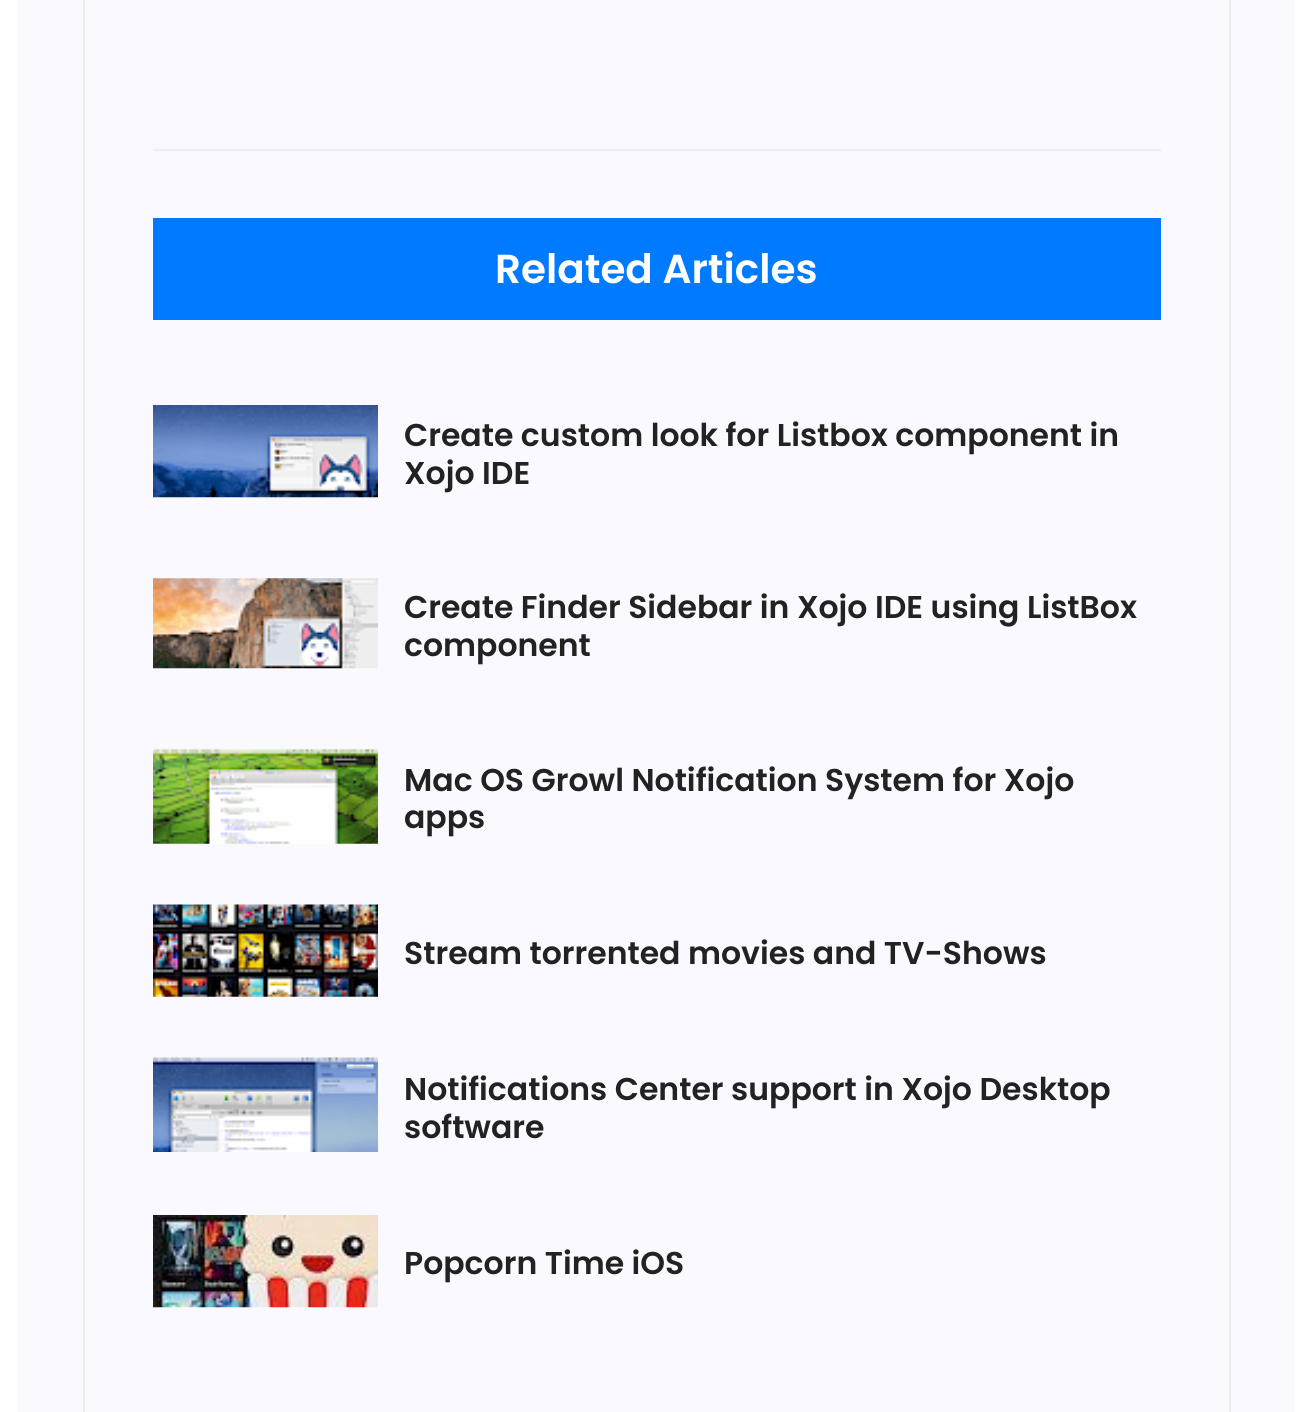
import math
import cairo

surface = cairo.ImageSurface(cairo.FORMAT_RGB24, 1310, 1412)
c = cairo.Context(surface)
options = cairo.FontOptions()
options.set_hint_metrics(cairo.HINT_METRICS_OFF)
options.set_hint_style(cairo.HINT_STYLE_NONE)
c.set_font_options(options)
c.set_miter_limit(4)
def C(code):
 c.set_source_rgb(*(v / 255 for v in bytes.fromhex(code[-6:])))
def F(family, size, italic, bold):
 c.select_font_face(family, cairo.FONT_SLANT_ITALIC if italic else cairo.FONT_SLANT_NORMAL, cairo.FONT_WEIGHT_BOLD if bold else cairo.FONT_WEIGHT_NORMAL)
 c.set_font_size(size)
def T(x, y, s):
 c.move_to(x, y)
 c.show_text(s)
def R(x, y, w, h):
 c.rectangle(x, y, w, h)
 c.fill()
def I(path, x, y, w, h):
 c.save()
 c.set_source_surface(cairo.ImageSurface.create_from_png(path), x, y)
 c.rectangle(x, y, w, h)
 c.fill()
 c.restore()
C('ffffff')
c.paint()
C('f9f9ff')
R(18,0,1276,1412)
c.rectangle(84,-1,1146,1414)
C('eeeeee')
c.stroke()
R(153,149,1008,2)
C('007bff')
R(153,218,1008,102)
F('Poppins SemiBold',40.5,0,0)
C('ffffff')
T(495,283,'Related Articles')
I('1.png',153,405,225,93)
F('Poppins SemiBold',31.5,0,0)
C('222222')
T(404,446,'Create custom look for Listbox component in')
T(404,484,'Xojo IDE')
I('2.png',153,578,225,91)
T(404,618,'Create Finder Sidebar in Xojo IDE using ListBox')
T(404,656,'component')
I('3.png',153,749,225,95)
T(404,791,'Mac OS Growl Notification System for Xojo')
T(404,828,'apps')
I('4.png',153,904,225,93)
T(404,964,'Stream torrented movies and TV-Shows')
I('5.png',153,1057,225,95)
T(404,1100,'Notifications Center support in Xojo Desktop')
T(404,1138,'software')
I('6.png',153,1215,225,93)
T(404,1274,'Popcorn Time iOS')
surface.write_to_png('o.png')
